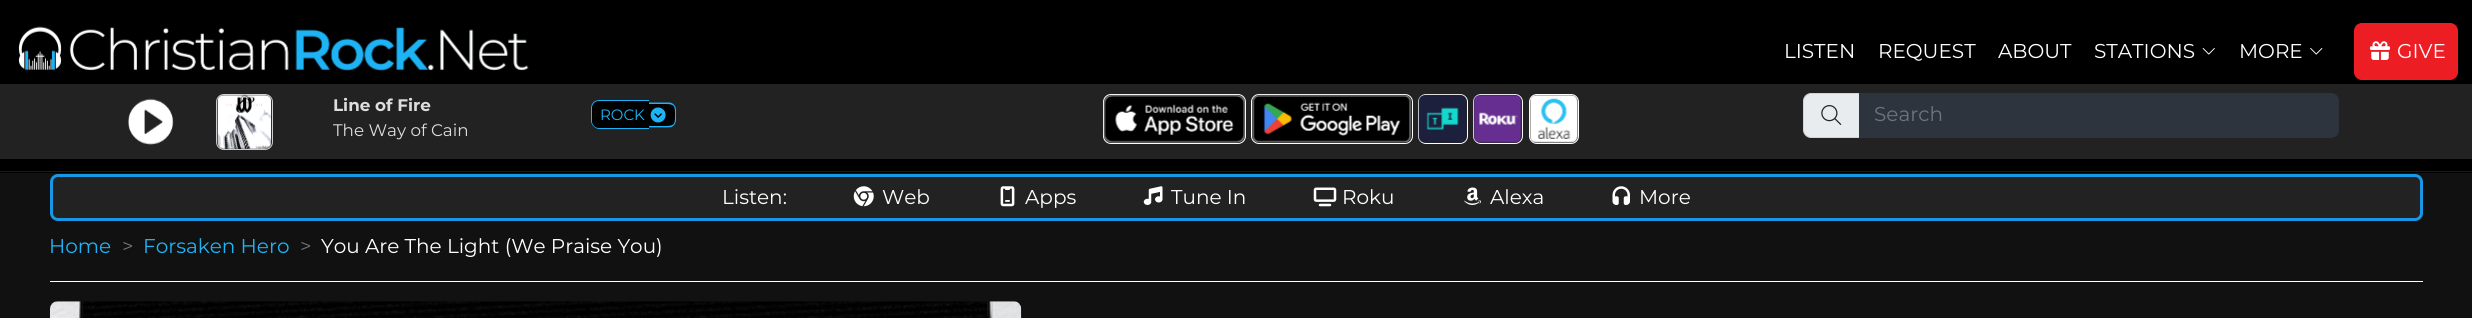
import math
import cairo

surface = cairo.ImageSurface(cairo.FORMAT_RGB24, 2472, 318)
c = cairo.Context(surface)
options = cairo.FontOptions()
options.set_hint_metrics(cairo.HINT_METRICS_OFF)
options.set_hint_style(cairo.HINT_STYLE_NONE)
c.set_font_options(options)
c.set_miter_limit(4)
def C(code):
 c.set_source_rgb(*(v / 255 for v in bytes.fromhex(code[-6:])))
def F(family, size, italic, bold):
 c.select_font_face(family, cairo.FONT_SLANT_ITALIC if italic else cairo.FONT_SLANT_NORMAL, cairo.FONT_WEIGHT_BOLD if bold else cairo.FONT_WEIGHT_NORMAL)
 c.set_font_size(size)
def T(x, y, s):
 c.move_to(x, y)
 c.show_text(s)
def R(x, y, w, h):
 c.rectangle(x, y, w, h)
 c.fill()
def Q(x, y, w, h, r):
 c.new_sub_path()
 for i, (u, v) in enumerate([(x + w - r, y + h - r), (x + r, y + h - r), (x + r, y + r), (x + w - r, y + r)]):
  c.arc(u, v, r, i * math.pi / 2, (i + 1) * math.pi / 2)
 c.close_path()
def I(path, x, y, w, h):
 c.save()
 c.set_source_surface(cairo.ImageSurface.create_from_png(path), x, y)
 c.rectangle(x, y, w, h)
 c.fill()
 c.restore()
C('111111')
c.paint()
C('000000')
R(0,0,2472,173)
C('1a1a1a')
R(0,171,2472,1)
I('1.png',18,26,511,45)
F('Montserrat',20,0,0)
C('ffffff')
T(1784,58,'LISTEN')
T(1878,58,'REQUEST')
T(1998,58,'ABOUT')
T(2094,58,'STATIONS')
I('2.png',2202,48,13,7)
T(2239,58,'MORE')
I('3.png',2310,48,13,7)
C('ed1d24')
Q(2354.5,23.5,103,56,7.5)
c.fill_preserve()
c.set_line_width(1)
c.stroke()
I('4.png',2370,41,20,19)
C('ffffff')
T(2397,58,'GIVE')
C('222222')
R(0,84,2472,75)
I('5.png',128,98,46,47)
Q(216.5,94.5,56,55,7.5)
C('cccccc')
c.stroke()
I('6.png',217,94,55,55)
F('Montserrat',16.75,0,1)
C('dddddd')
T(333,111,'Line of Fire')
F('Montserrat',16.75,0,0)
T(333,136,'The Way of Cain')
C('000000')
c.new_path()
c.move_to(599,100)
c.line_to(649,100)
c.line_to(649,129)
c.line_to(599,129)
c.curve_to(594.5,129,591,125.5,591,121)
c.line_to(591,108)
c.curve_to(591,103.5,594.5,100,599,100)
c.close_path()
c.fill()
C('1eb3f4')
c.set_fill_rule(cairo.FILL_RULE_EVEN_ODD)
c.new_path()
c.move_to(599,100)
c.line_to(649,100)
c.line_to(649,129)
c.line_to(599,129)
c.curve_to(595,129,591,125,591,121)
c.line_to(591,108)
c.curve_to(591,103,595,100,599,100)
c.close_path()
c.move_to(599,101)
c.line_to(649,101)
c.line_to(649,128)
c.line_to(599,128)
c.curve_to(595,128,592,125,592,121)
c.line_to(592,108)
c.curve_to(592,104,595,101,599,101)
c.close_path()
c.fill()
C('000000')
c.new_path()
c.move_to(649,103)
c.line_to(668,103)
c.curve_to(672.5,103,676,106.5,676,111)
c.line_to(676,120)
c.curve_to(676,124.5,672.5,128,668,128)
c.line_to(649,128)
c.close_path()
c.fill()
C('1eb3f4')
c.new_path()
c.move_to(649,102.5)
c.line_to(669,102.5)
c.curve_to(673,102.5,676,106,676,110)
c.line_to(676,120)
c.curve_to(676,124,673,127.5,669,127.5)
c.line_to(649,127.5)
c.close_path()
c.move_to(649,104)
c.line_to(665.5,104)
c.curve_to(675,104,675,106.5,675,115)
c.curve_to(675,123.5,675,126,665.5,126)
c.line_to(649,126)
c.close_path()
c.fill()
F('Montserrat',15,0,0)
T(600,120,'ROCK')
I('7.png',650,107,16,16)
Q(1103.5,94.5,142,49,7.5)
C('ffffff')
c.stroke()
I('8.png',1103,94,143,49)
Q(1251.5,94.5,161,49,7.5)
c.stroke()
I('9.png',1252,94,160,49)
Q(1418.5,94.5,49,49,7.5)
c.stroke()
I('10.png',1418,94,49,49)
Q(1473.5,94.5,49,49,7.5)
c.stroke()
I('11.png',1473,94,49,49)
Q(1529.5,94.5,49,49,7.5)
c.stroke()
I('12.png',1529,94,49,49)
C('e9ecef')
c.new_path()
c.move_to(1811,93.5)
c.line_to(1859.5,93.5)
c.line_to(1859.5,137.5)
c.line_to(1811,137.5)
c.curve_to(1807,137.5,1803.5,134,1803.5,130)
c.line_to(1803.5,101)
c.curve_to(1803.5,97,1807,93.5,1811,93.5)
c.close_path()
c.fill_preserve()
C('ced4da')
c.stroke()
I('13.png',1821,105,21,20)
C('2d343d')
c.new_path()
c.move_to(1859,93)
c.line_to(2331,93)
c.curve_to(2335.5,93,2339,96.5,2339,101)
c.line_to(2339,130)
c.curve_to(2339,134.5,2335.5,138,2331,138)
c.line_to(1859,138)
c.close_path()
c.fill()
F('Montserrat',20,0,0)
C('6c757d')
T(1874,121,'Search')
C('222222')
Q(51.5,175.5,2370,44,6.5)
c.fill_preserve()
C('1997e5')
c.set_line_width(3)
c.stroke()
C('ffffff')
T(722,204,'Listen:')
I('14.png',853,186,21,21)
T(882,204,'Web')
I('15.png',1000,186,15,21)
T(1025,204,'Apps')
I('16.png',1143,186,20,19)
T(1171,204,'Tune In')
I('17.png',1313,187,24,20)
T(1342,204,'Roku')
I('18.png',1464,187,17,18)
T(1490,204,'Alexa')
I('19.png',1612,186,18,19)
T(1639,204,'More')
C('1eb3f4')
T(49,253,'Home')
C('6c757d')
T(122,253,'>')
C('1eb3f4')
T(143,253,'Forsaken Hero')
C('6c757d')
T(300,253,'>')
C('ffffff')
T(321,253,'You Are The Light (We Praise You)')
R(50,281,2373,1)
I('20.png',50,301,972,17)
surface.write_to_png('o.png')
